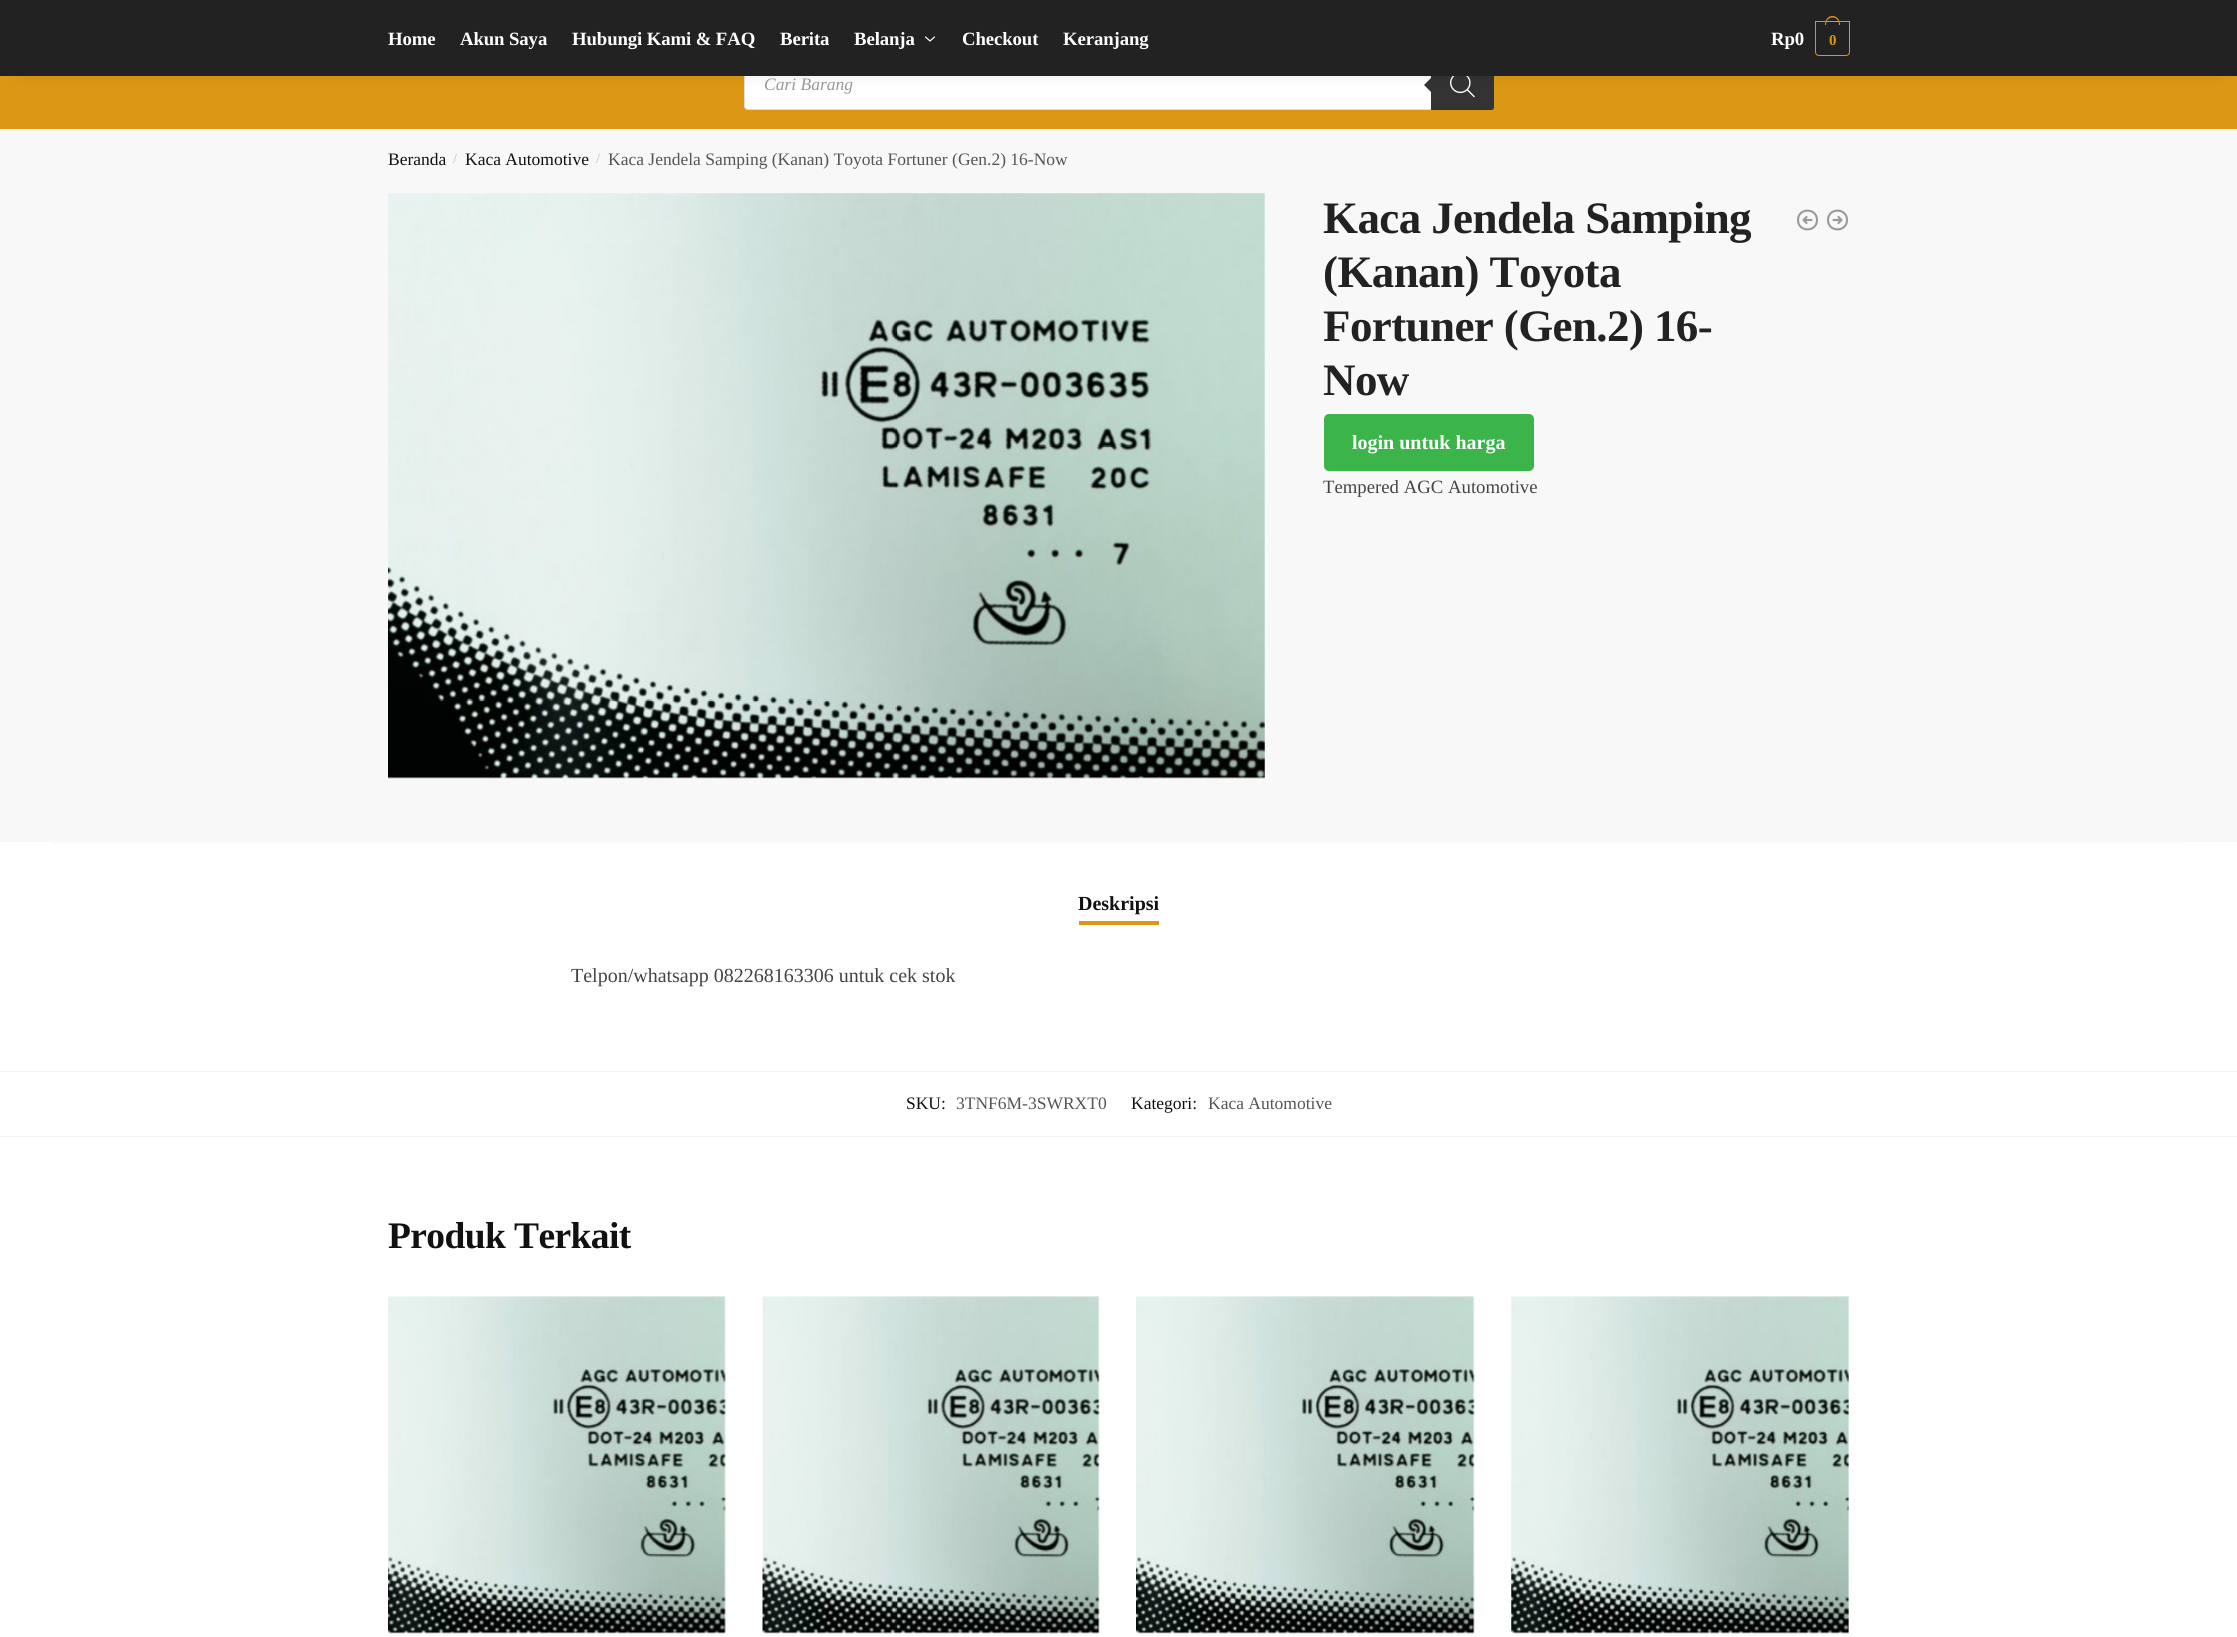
import math
import cairo

surface = cairo.ImageSurface(cairo.FORMAT_RGB24, 2237, 1637)
c = cairo.Context(surface)
options = cairo.FontOptions()
options.set_hint_metrics(cairo.HINT_METRICS_OFF)
options.set_hint_style(cairo.HINT_STYLE_NONE)
c.set_font_options(options)
c.set_miter_limit(4)
def C(code):
 c.set_source_rgb(*(v / 255 for v in bytes.fromhex(code[-6:])))
def F(family, size, italic, bold):
 c.select_font_face(family, cairo.FONT_SLANT_ITALIC if italic else cairo.FONT_SLANT_NORMAL, cairo.FONT_WEIGHT_BOLD if bold else cairo.FONT_WEIGHT_NORMAL)
 c.set_font_size(size)
def T(x, y, s):
 c.move_to(x, y)
 c.show_text(s)
def L(x, y, s, letter, word):
 c.move_to(x, y)
 for ch in s:
  c.show_text(ch)
  c.rel_move_to(letter + word * (ch == ' '), 0)
def R(x, y, w, h):
 c.rectangle(x, y, w, h)
 c.fill()
def Q(x, y, w, h, r):
 c.new_sub_path()
 for i, (u, v) in enumerate([(x + w - r, y + h - r), (x + r, y + h - r), (x + r, y + r), (x + w - r, y + r)]):
  c.arc(u, v, r, i * math.pi / 2, (i + 1) * math.pi / 2)
 c.close_path()
def S(x, y, w, h, r, blur, alpha):
 c.push_group_with_content(cairo.CONTENT_ALPHA)
 c.set_operator(cairo.OPERATOR_SOURCE)
 for i in range(15, -16, -2):
  e = blur * i / 6
  if min(w, h) + 2 * e > 0:
   c.set_source_rgba(0, 0, 0, alpha * math.erfc((i - 1) / 8.5) / 2)
   Q(x - e, y - e, w + 2 * e, h + 2 * e, max(0, min(r + e + blur * .6, min(w, h) / 2 + e)))
   c.fill()
 c.mask(c.pop_group())
def I(path, x, y, w, h):
 c.save()
 c.set_source_surface(cairo.ImageSurface.create_from_png(path), x, y)
 c.rectangle(x, y, w, h)
 c.fill()
 c.restore()
C('dc9814')
c.paint()
C('ffffff')
Q(744.5,60.5,749,49,3.5)
c.fill_preserve()
C('dddddd')
c.set_line_width(1)
c.stroke()
C('333333')
c.new_path()
c.move_to(1431,60)
c.line_to(1491.5,60)
c.curve_to(1493,60,1494,61,1494,62.5)
c.line_to(1494,107.5)
c.curve_to(1494,109,1493,110,1491.5,110)
c.line_to(1431,110)
c.close_path()
c.fill()
c.new_path()
c.move_to(1434,75)
c.line_to(1434,95)
c.line_to(1424,85)
c.close_path()
c.fill()
I('1.png',1450,76,25,22)
C('000000')
S(19,38,2200,38,0,6,.1)
C('222222')
R(0,0,2237,76)
F('Liberation Serif',18.75,0,1)
C('ffffff')
L(388,45,'Home',-.1,0)
L(460,45,'Akun Saya',-.1,0)
L(572,45,'Hubungi Kami & FAQ',-.1,0)
L(780,45,'Berita',-.1,0)
L(854,45,'Belanja',-.1,0)
c.new_path()
c.move_to(934.5,37)
c.line_to(930,41)
c.line_to(925.5,37)
c.set_line_width(1.2)
c.set_line_cap(cairo.LINE_CAP_ROUND)
c.set_line_join(cairo.LINE_JOIN_ROUND)
c.stroke()
L(962,45,'Checkout',-.1,0)
L(1063,45,'Keranjang',-.1,0)
L(1771,45,'Rp0',-.1,0)
c.new_path()
c.move_to(1815.5,21.5)
c.line_to(1849.5,21.5)
c.line_to(1849.5,52)
c.curve_to(1849.5,54,1848,55.5,1846,55.5)
c.line_to(1819,55.5)
c.curve_to(1817,55.5,1815.5,54,1815.5,52)
c.close_path()
C('dc9814')
c.set_line_width(1)
c.set_line_cap(cairo.LINE_CAP_BUTT)
c.set_line_join(cairo.LINE_JOIN_MITER)
c.stroke()
c.set_fill_rule(cairo.FILL_RULE_EVEN_ODD)
c.new_path()
c.move_to(1832.5,16)
c.curve_to(1837.5,16,1840,20.5,1840,25)
c.line_to(1825,25)
c.curve_to(1825,20.5,1827.5,16,1832.5,16)
c.close_path()
c.move_to(1832.5,17.5)
c.curve_to(1837,17.5,1839,21,1839,25)
c.line_to(1826,25)
c.curve_to(1826,21,1828,17.5,1832.5,17.5)
c.close_path()
c.fill()
F('Liberation Serif',15,0,1)
L(1829,45,'0',-1,0)
F('Liberation Serif',17.5,1,0)
C('999999')
T(764,90,'Cari Barang')
C('f8f8f8')
R(0,129,2237,712)
F('Liberation Serif',17.5,0,0)
C('111111')
T(388,165,'Beranda')
F('Liberation Serif',14,0,0)
C('b7b7b7')
T(453,163,'/')
F('Liberation Serif',17.5,0,0)
C('111111')
T(465,165,'Kaca Automotive')
F('Liberation Serif',14,0,0)
C('b7b7b7')
T(596,163,'/')
F('Liberation Serif',17.5,0,0)
C('555555')
T(608,165,'Kaca Jendela Samping (Kanan) Toyota Fortuner (Gen.2) 16-Now')
C('ffffff')
R(388,193,877,585)
I('2.png',388,193,877,586)
F('Liberation Serif',45,0,1)
C('222222')
L(1323,233,'Kaca Jendela Samping',-.6,0)
L(1323,287,'(Kanan) Toyota',-.6,0)
L(1323,341,'Fortuner (Gen.2) 16-',-.6,0)
L(1323,395,'Now',-.6,0)
c.new_path()
c.move_to(1806.5,223)
c.line_to(1803.5,220)
c.move_to(1803.5,220)
c.line_to(1806.5,217)
c.move_to(1803.5,220)
c.line_to(1811.5,220)
c.move_to(1798,220)
c.curve_to(1798,207.5,1817,207.5,1817,220)
c.curve_to(1817,232.5,1798,232.5,1798,220)
c.close_path()
c.move_to(1838.5,217)
c.line_to(1841.5,220)
c.move_to(1841.5,220)
c.line_to(1838.5,223)
c.move_to(1841.5,220)
c.line_to(1833.5,220)
c.move_to(1847,220)
c.curve_to(1847,232.5,1828,232.5,1828,220)
c.curve_to(1828,207.5,1847,207.5,1847,220)
c.close_path()
C('999999')
c.set_line_width(2.1)
c.set_line_cap(cairo.LINE_CAP_ROUND)
c.set_line_join(cairo.LINE_JOIN_ROUND)
c.stroke()
C('3bb54a')
Q(1324,414,210,57,5)
c.fill()
F('Liberation Serif',20,0,1)
C('ffffff')
T(1352,449,'login untuk harga')
F('Liberation Serif',18.75,0,0)
C('444444')
T(1323,493,'Tempered AGC Automotive')
C('ffffff')
R(0,842,2237,229)
C('f5f5f5')
R(0,841,2237,1)
C('f8f8f8')
R(53,843,2132,1)
F('Liberation Serif',20,0,1)
C('111111')
T(1078,910,'Deskripsi')
C('dc9814')
R(1079,921,80,4)
F('Liberation Serif',20,0,0)
C('444444')
T(571,982,'Telpon/whatsapp 082268163306 untuk cek stok')
C('ffffff')
R(0,1072,2237,565)
C('f2f2f2')
R(0,1071,2237,1)
R(0,1136,2237,1)
F('Liberation Serif',17.5,0,0)
C('111111')
T(906,1109,'SKU:')
C('555555')
T(956,1109,'3TNF6M-3SWRXT0')
C('111111')
T(1131,1109,'Kategori:')
C('555555')
T(1208,1109,'Kaca Automotive')
F('Liberation Serif',37.5,0,1)
C('111111')
L(388,1248,'Produk Terkait',-.6,0)
I('3.png',388,1296,338,338)
I('4.png',762,1296,338,338)
I('5.png',1136,1296,339,338)
I('6.png',1511,1296,338,338)
surface.write_to_png('o.png')
